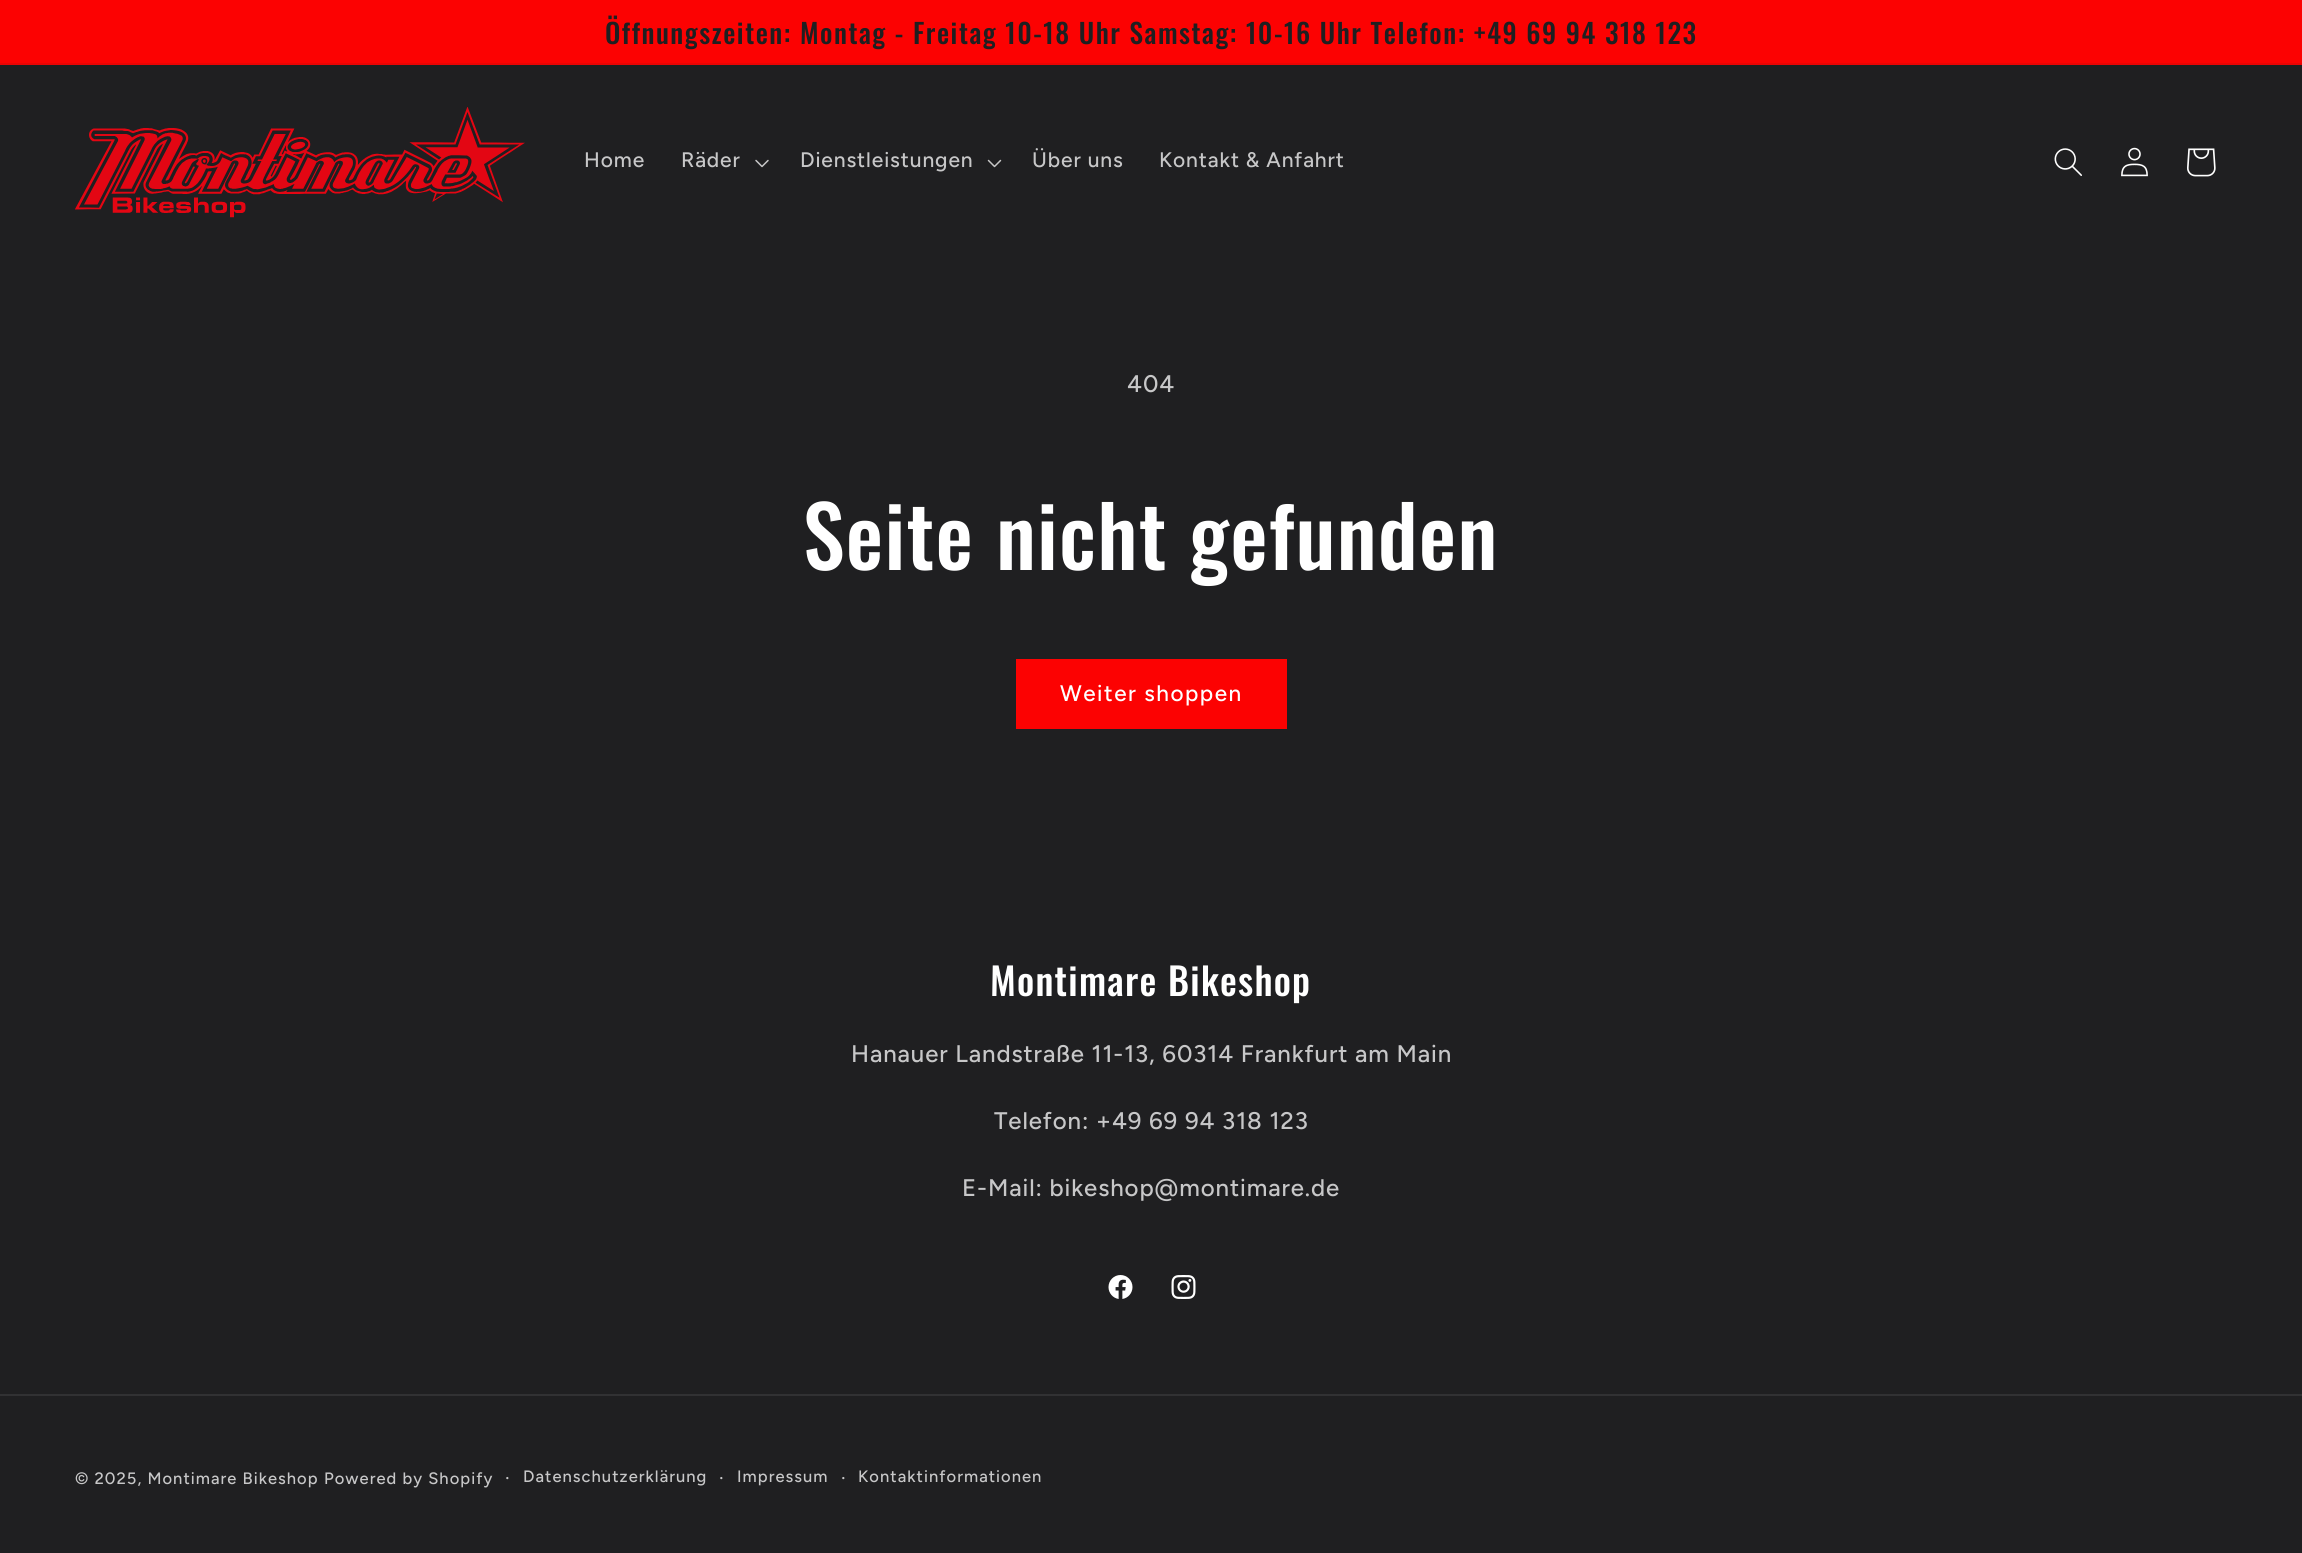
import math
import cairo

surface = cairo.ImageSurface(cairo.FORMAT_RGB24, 2302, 1553)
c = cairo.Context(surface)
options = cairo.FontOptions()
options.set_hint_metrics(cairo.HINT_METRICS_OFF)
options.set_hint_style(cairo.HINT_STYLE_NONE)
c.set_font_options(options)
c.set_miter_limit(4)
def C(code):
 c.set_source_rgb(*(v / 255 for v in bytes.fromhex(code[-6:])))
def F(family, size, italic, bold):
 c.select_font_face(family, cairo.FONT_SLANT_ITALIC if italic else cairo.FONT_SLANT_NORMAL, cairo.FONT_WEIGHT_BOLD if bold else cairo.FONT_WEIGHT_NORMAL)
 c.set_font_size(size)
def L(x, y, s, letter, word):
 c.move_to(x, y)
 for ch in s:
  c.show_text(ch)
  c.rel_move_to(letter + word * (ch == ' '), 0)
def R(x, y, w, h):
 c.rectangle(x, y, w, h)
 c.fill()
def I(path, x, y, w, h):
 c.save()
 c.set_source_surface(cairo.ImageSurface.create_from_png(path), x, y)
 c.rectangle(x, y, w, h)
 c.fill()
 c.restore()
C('1f1f21')
c.paint()
C('fc0202')
R(0,0,2302,63)
C('ea0404')
R(0,63,2302,2)
F('Oswald Medium',27.3,0,0)
C('1f1f21')
L(605,44,'Öffnungszeiten: Montag - Freitag 10-18 Uhr Samstag: 10-16 Uhr Telefon: +49 69 94 318 123',1.5,0)
I('1.png',75,107,450,111)
F('Figtree Medium',21,0,0)
C('c7c7c8')
L(584,167,'Home',.9,0)
L(681,167,'Räder',.9,0)
I('2.png',755,159,14,9)
L(800,167,'Dienstleistungen',.9,0)
I('3.png',987,159,15,9)
L(1032,167,'Über uns',.9,0)
L(1159,167,'Kontakt & Anfahrt',.9,0)
I('4.png',2054,148,28,28)
I('5.png',2121,147,27,30)
I('6.png',2187,148,29,29)
F('Figtree Medium',24,0,0)
L(1127,392,'404',.9,0)
F('Oswald Medium',84,0,0)
C('ffffff')
L(803,570,'Seite nicht gefunden',1.25,0)
C('fc0202')
R(1016,659,271,70)
F('Figtree Medium',22.5,0,0)
C('ffffff')
L(1060,701,'Weiter shoppen',1.5,0)
F('Oswald Medium',37.75,0,0)
L(990,996,'Montimare Bikeshop',1.25,0)
F('Figtree Medium',24,0,0)
C('c7c7c8')
L(851,1062,'Hanauer Landstraße 11-13, 60314 Frankfurt am Main',.9,0)
L(994,1129,'Telefon: +49 69 94 318 123',.9,0)
L(962,1196,'E-Mail: bikeshop@montimare.de',.9,0)
I('7.png',1108,1275,25,24)
I('8.png',1171,1275,25,24)
C('313133')
R(0,1394,2302,2)
F('Figtree Medium',16.5,0,0)
C('c7c7c8')
L(75,1484,'© 2025, Montimare Bikeshop',1.05,0)
L(324,1484,'Powered by Shopify',1.05,0)
F('Figtree Medium',18,0,0)
L(505,1484,'·',1.05,0)
F('Figtree Medium',16.5,0,0)
L(523,1482,'Datenschutzerklärung',1.05,0)
F('Figtree Medium',18,0,0)
L(719,1484,'·',1.05,0)
F('Figtree Medium',16.5,0,0)
L(737,1482,'Impressum',1.05,0)
F('Figtree Medium',18,0,0)
L(841,1484,'·',1.05,0)
F('Figtree Medium',16.5,0,0)
L(858,1482,'Kontaktinformationen',1.05,0)
surface.write_to_png('o.png')
